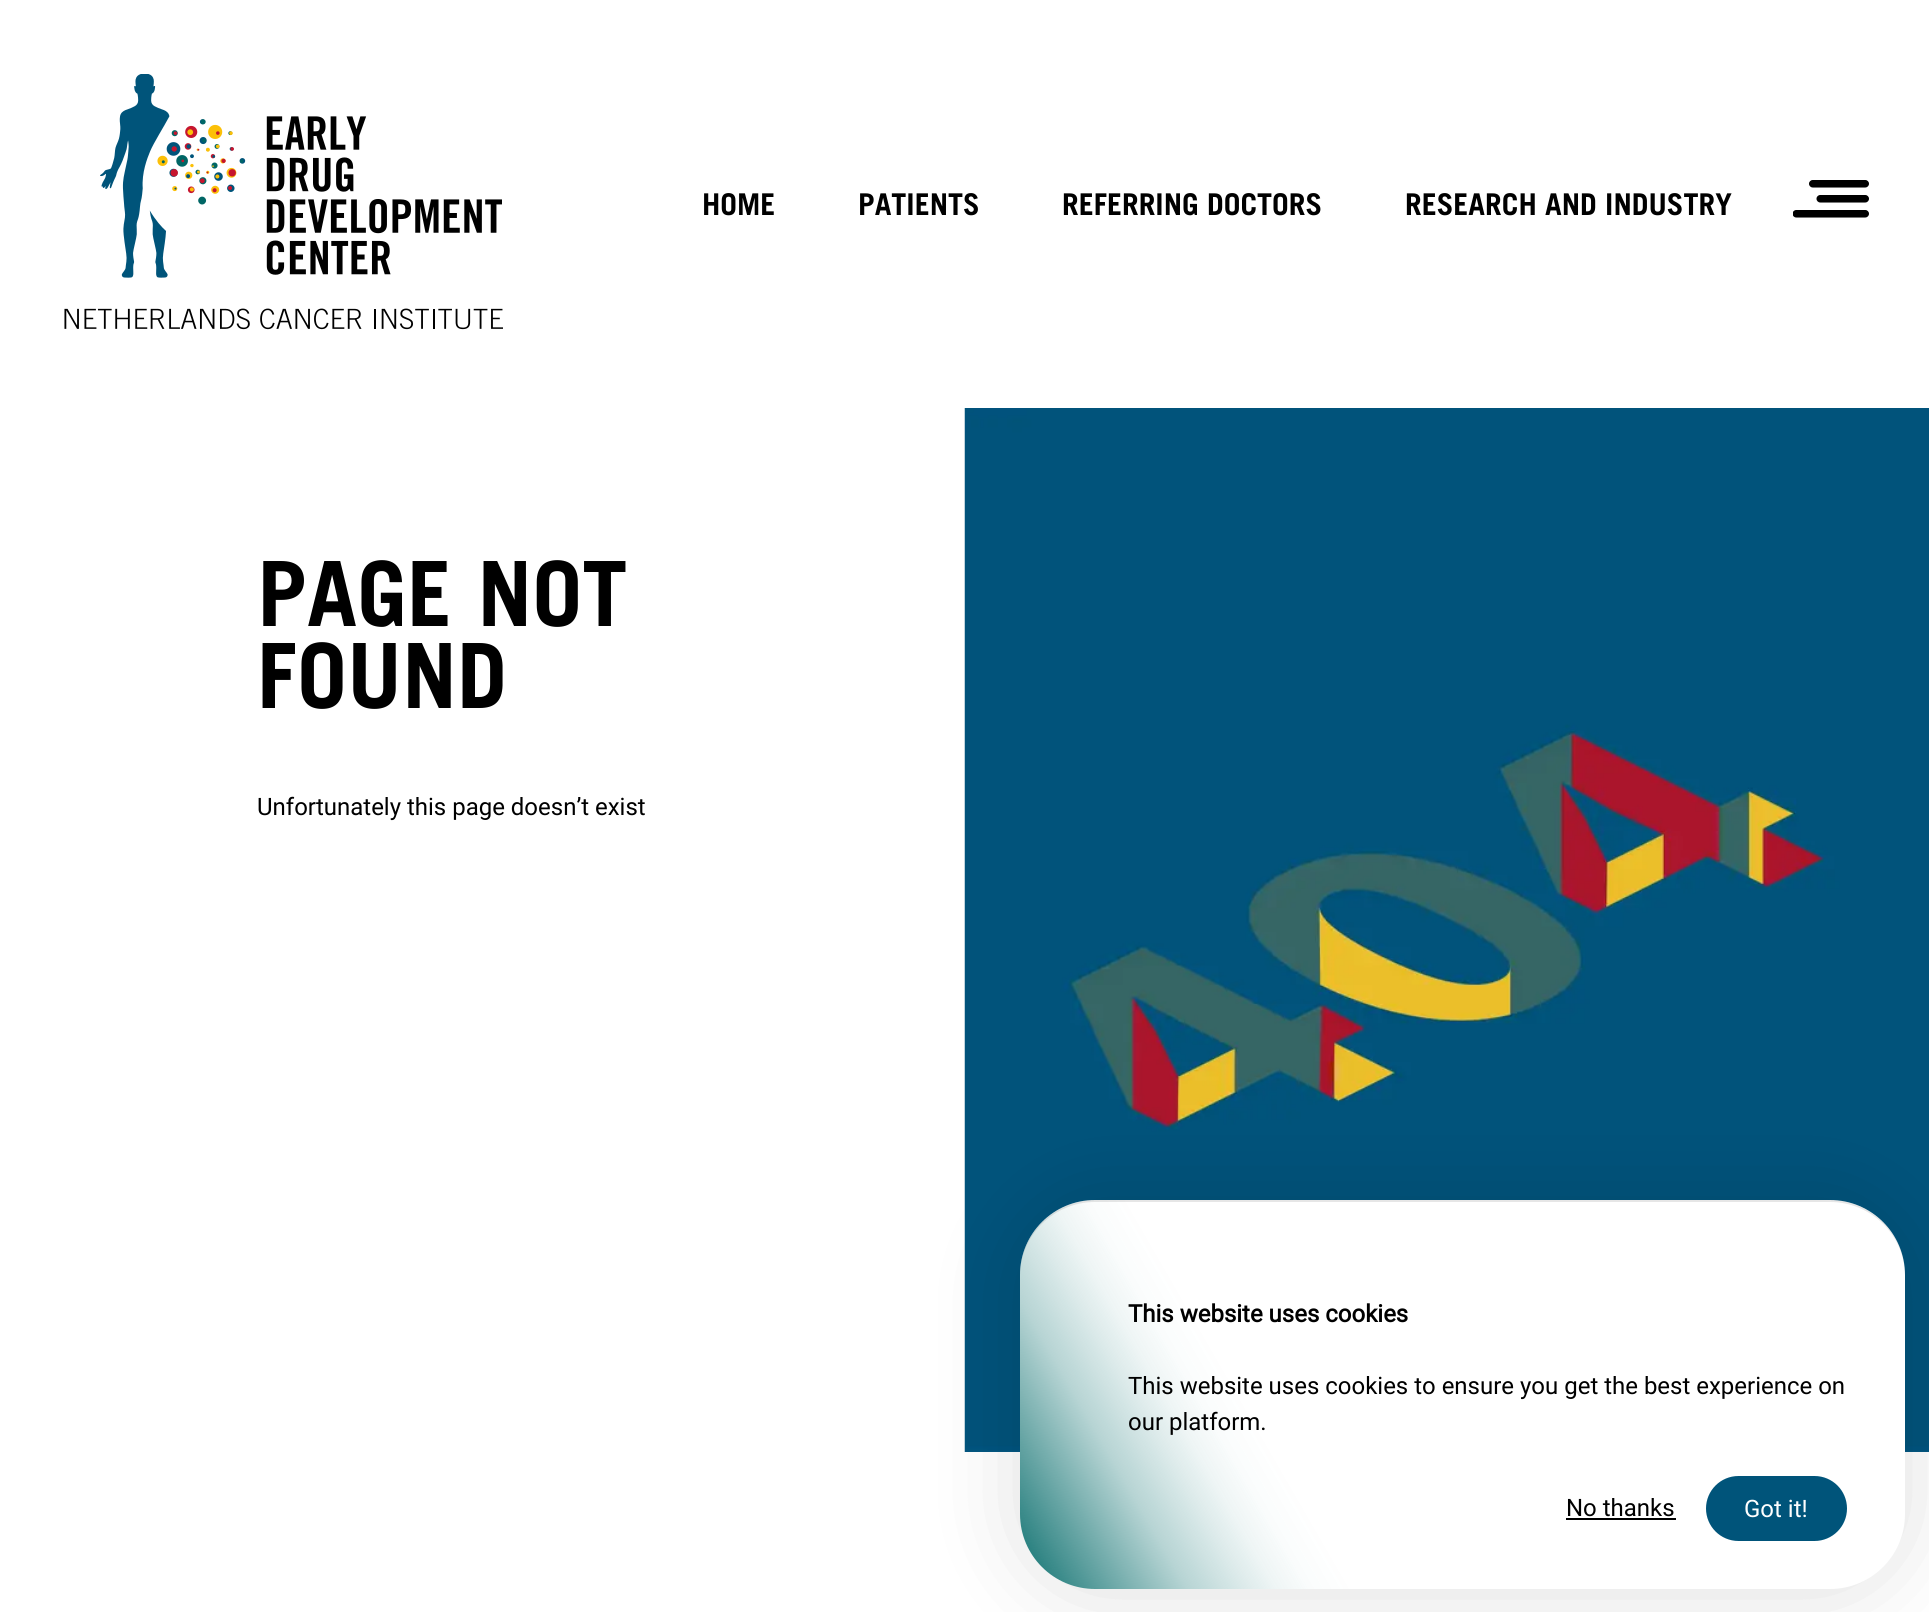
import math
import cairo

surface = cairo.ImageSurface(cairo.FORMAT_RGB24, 1929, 1612)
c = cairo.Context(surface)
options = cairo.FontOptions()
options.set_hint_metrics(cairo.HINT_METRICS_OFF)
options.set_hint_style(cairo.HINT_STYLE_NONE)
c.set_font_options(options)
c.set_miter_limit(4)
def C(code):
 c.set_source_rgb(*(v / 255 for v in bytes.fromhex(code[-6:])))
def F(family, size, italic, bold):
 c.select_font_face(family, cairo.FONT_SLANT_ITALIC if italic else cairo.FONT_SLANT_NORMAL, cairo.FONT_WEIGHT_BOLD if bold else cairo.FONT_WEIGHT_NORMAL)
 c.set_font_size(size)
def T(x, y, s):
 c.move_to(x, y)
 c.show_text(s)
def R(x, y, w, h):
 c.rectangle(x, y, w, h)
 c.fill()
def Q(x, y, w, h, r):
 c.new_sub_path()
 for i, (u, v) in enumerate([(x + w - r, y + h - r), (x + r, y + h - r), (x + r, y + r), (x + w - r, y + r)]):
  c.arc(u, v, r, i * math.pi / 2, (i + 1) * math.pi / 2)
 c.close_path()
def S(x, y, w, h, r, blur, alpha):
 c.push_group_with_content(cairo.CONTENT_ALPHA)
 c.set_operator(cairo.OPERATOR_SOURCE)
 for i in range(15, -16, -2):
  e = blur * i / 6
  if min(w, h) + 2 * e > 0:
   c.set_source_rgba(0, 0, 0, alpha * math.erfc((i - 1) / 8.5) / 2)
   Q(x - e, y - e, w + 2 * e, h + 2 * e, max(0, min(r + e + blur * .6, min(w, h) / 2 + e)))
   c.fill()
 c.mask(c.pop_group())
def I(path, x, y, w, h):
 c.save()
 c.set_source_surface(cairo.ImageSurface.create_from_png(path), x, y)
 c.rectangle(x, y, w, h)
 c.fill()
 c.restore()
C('ffffff')
c.paint()
I('1.png',64,74,439,256)
F('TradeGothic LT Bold',30,0,1)
C('000000')
T(702,215,'HOME')
T(858,215,'PATIENTS')
T(1062,215,'REFERRING DOCTORS')
T(1405,215,'RESEARCH AND INDUSTRY')
I('2.png',1793,180,76,38)
F('TradeGothic LT Bold',90,0,1)
T(257,626,'PAGE NOT')
T(257,708,'FOUND')
F('Roboto',24,0,0)
T(257,815,'Unfortunately this page doesn’t exist')
I('3.png',964,408,965,1044)
C('000000')
S(1020,1203,885,389,75,45,.13)
C('ffffff')
Q(1020,1200,885,389,75)
c.fill()
gradient = cairo.LinearGradient(1047,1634,1878,1154)
gradient.add_color_stop_rgba(0,0.051,0.439,0.435,1)
gradient.add_color_stop_rgba(.15,0.051,0.439,0.435,.3)
gradient.add_color_stop_rgba(.2,0.051,0.439,0.435,.15)
gradient.add_color_stop_rgba(.23,0.051,0.439,0.435,.07)
gradient.add_color_stop_rgba(.25,0.051,0.439,0.435,.04)
gradient.add_color_stop_rgba(.26,0.051,0.439,0.435,.02)
gradient.add_color_stop_rgba(.3,0.051,0.439,0.435,0)
c.set_source(gradient)
Q(1020,1200,885,389,75)
c.fill()
c.set_source_rgba(0,0,0,0.1)
c.new_path()
c.move_to(1095,1202)
c.line_to(1830,1202)
c.curve_to(1871,1202,1905,1235,1905,1276)
c.line_to(1905,1275)
c.curve_to(1905,1234,1871,1200,1830,1200)
c.line_to(1095,1200)
c.curve_to(1054,1200,1020,1234,1020,1275)
c.line_to(1020,1276)
c.curve_to(1020,1235,1054,1202,1095,1202)
c.close_path()
c.fill()
F('Roboto',24,0,1)
C('000000')
T(1128,1322,'This website uses cookies')
F('Roboto',24,0,0)
T(1128,1394,'This website uses cookies to ensure you get the best experience on')
T(1128,1430,'our platform.')
T(1566,1516,'No thanks')
R(1566,1518,110,2)
C('00547a')
Q(1707.5,1477.5,138,62,31)
c.fill_preserve()
c.set_line_width(3)
c.stroke()
C('ffffff')
T(1744,1517,'Got it!')
surface.write_to_png('o.png')
